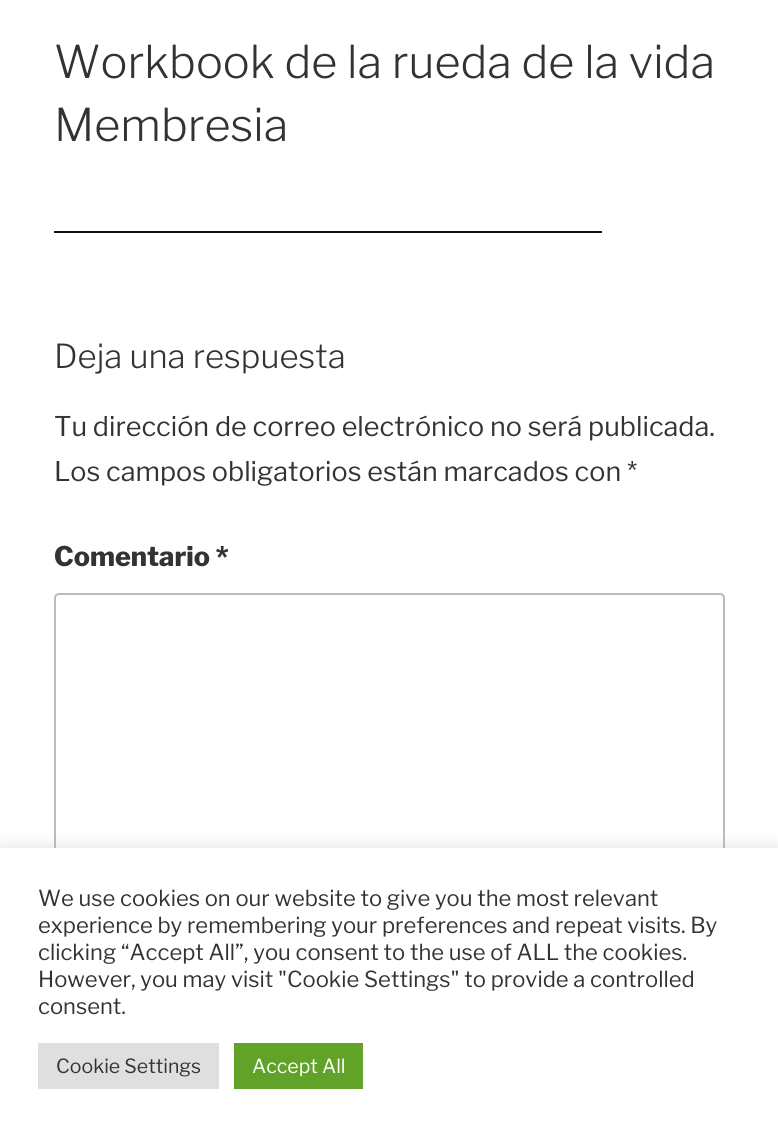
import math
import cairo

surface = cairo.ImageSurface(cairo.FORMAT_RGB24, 778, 1133)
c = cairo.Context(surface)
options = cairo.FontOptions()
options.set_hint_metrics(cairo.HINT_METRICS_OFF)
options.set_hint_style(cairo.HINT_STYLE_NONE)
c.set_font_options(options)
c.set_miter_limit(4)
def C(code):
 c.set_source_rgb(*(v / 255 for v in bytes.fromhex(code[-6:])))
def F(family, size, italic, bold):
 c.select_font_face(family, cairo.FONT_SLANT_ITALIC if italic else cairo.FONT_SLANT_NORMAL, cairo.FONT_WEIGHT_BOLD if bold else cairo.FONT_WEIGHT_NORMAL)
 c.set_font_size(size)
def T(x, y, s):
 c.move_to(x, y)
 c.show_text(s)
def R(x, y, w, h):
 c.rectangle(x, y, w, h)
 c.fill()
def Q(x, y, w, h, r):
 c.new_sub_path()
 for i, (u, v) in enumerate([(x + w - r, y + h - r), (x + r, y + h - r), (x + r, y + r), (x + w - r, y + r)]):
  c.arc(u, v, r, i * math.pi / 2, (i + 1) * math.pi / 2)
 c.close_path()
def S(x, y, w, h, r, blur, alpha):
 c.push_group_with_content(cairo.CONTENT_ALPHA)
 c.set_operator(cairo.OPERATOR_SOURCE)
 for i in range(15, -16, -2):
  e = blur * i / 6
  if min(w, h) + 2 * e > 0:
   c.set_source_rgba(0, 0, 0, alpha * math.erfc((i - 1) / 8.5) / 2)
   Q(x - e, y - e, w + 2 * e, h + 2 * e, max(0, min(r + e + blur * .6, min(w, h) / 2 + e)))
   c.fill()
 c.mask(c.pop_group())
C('ffffff')
c.paint()
F('Libre Franklin Thin',45,0,0)
C('333333')
T(54,78,'Workbook de la rueda de la vida')
T(54,141,'Membresia')
C('0f0f0f')
R(54,231,548,2)
F('Libre Franklin Thin',33,0,0)
C('333333')
T(54,368,'Deja una respuesta')
F('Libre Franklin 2 Thin',27,0,0)
T(54,436,'Tu dirección de correo electrónico no será publicada.')
T(54,481,'Los campos obligatorios están marcados con *')
F('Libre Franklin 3 Thin',27,0,0)
T(54,566,'Comentario *')
Q(55,594,669,397,4)
C('bbbbbb')
c.stroke()
C('acabab')
S(0,846,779,287,0,7.5,.3)
C('ffffff')
R(0,848,778,285)
F('Libre Franklin 2 Thin',22,0,0)
C('333333')
T(38,906,'We use cookies on our website to give you the most relevant')
T(38,933,'experience by remembering your preferences and repeat visits. By')
T(38,960,'clicking “Accept All”, you consent to the use of ALL the cookies.')
T(38,987,'However, you may visit "Cookie Settings" to provide a controlled')
T(38,1014,'consent.')
C('dedfe0')
R(38,1043,181,46)
F('Libre Franklin 2 Thin',19.5,0,0)
C('333333')
T(56,1073,'Cookie Settings')
C('61a229')
R(234,1043,129,46)
C('ffffff')
T(252,1073,'Accept All')
surface.write_to_png('o.png')
